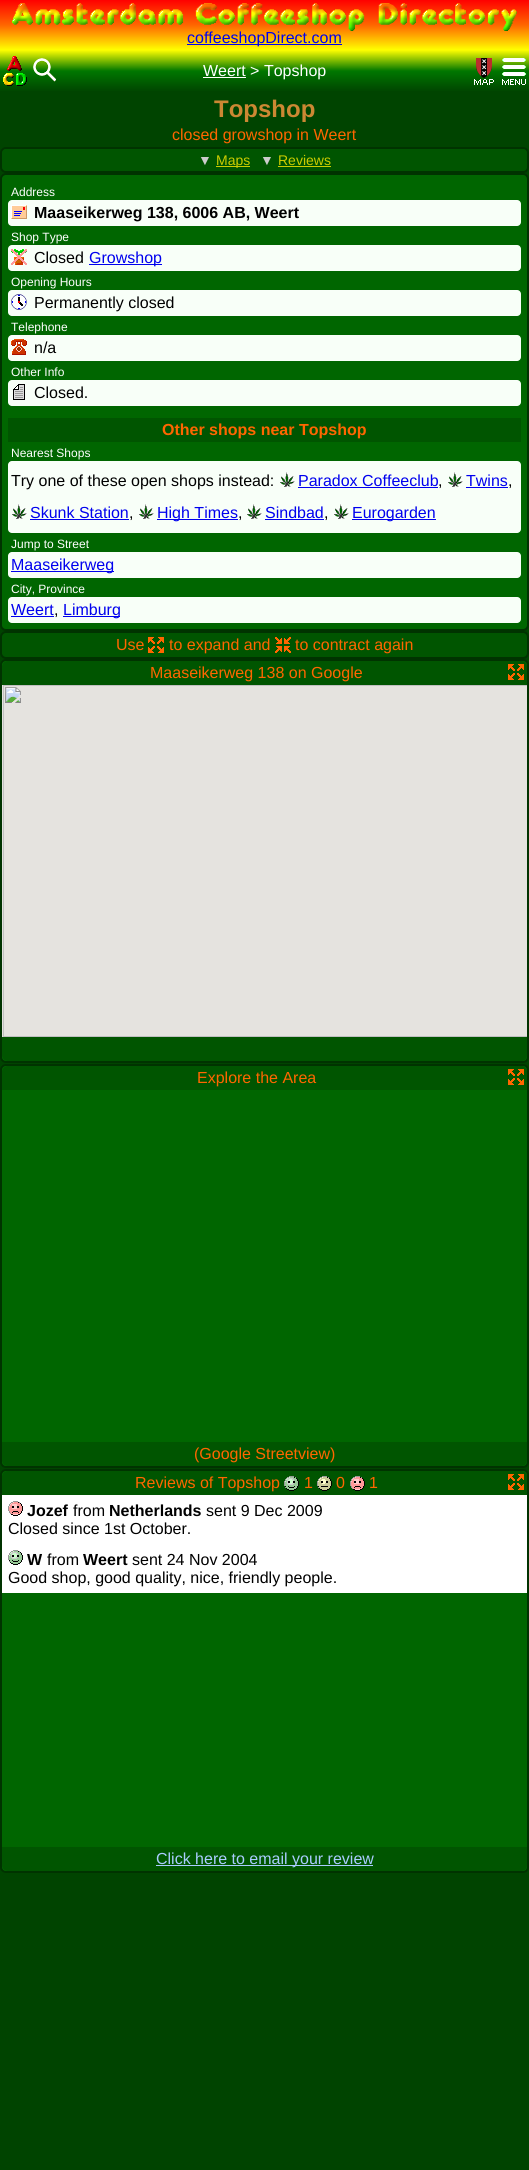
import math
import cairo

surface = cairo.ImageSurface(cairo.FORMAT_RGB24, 529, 2170)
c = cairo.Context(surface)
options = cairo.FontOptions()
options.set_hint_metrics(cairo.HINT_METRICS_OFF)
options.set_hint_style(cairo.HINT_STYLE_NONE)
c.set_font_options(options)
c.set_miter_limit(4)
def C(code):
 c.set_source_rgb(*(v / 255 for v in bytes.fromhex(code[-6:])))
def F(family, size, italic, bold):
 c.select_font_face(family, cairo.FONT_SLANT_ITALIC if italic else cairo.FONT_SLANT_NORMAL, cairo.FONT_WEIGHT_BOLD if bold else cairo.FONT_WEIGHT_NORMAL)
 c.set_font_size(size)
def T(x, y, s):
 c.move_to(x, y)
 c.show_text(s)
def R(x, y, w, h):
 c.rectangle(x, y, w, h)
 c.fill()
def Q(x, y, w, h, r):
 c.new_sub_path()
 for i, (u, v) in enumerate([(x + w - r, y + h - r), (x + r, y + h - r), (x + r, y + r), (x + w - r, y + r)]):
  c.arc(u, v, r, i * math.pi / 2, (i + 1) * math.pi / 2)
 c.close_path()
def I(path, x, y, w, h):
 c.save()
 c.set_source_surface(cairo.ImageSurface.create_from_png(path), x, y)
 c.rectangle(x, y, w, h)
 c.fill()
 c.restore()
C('004400')
c.paint()
gradient = cairo.LinearGradient(265,0,265,50)
gradient.add_color_stop_rgba(0,1,0,0,1)
gradient.add_color_stop_rgba(.5,1,0.4,0,1)
gradient.add_color_stop_rgba(1,1,1,0,1)
c.set_source(gradient)
R(0,0,529,50)
I('1.png',12,3,505,28)
C('0000ee')
R(187,44,155,1)
F('Liberation Sans',16,0,0)
T(187,43,'coffeeshopDirect.com')
gradient = cairo.LinearGradient(265,50,265,92)
gradient.add_color_stop_rgba(0,1,1,0,1)
gradient.add_color_stop_rgba(.5,0,0.467,0,1)
gradient.add_color_stop_rgba(1,0,0.267,0,1)
c.set_source(gradient)
R(0,50,529,41)
I('2.png',3,56,24,30)
I('3.png',33,58,23,24)
C('ffffff')
R(203,77,43,1)
T(203,76,'Weert > Topshop')
I('4.png',474,58,20,27)
I('5.png',502,58,24,27)
F('Liberation Sans',24,0,1)
C('cc8833')
T(214,117,'Topshop')
F('Liberation Sans',16,0,0)
C('ff6600')
T(172,140,'closed growshop in Weert')
Q(1,148,527,24,5)
C('003300')
c.stroke()
C('005500')
Q(2,149,525,22,4)
c.fill()
F('Liberation Sans',14,0,0)
C('cccccc')
T(198,165,'▼')
C('cccc00')
R(216,166,34,1)
T(216,165,'Maps')
C('cccccc')
T(260,165,'▼')
C('cccc00')
T(278,165,'Reviews')
R(278,166,53,1)
C('006600')
Q(1,174,527,456,5)
c.fill_preserve()
C('003300')
c.stroke()
F('Liberation Sans',12,0,0)
C('ffffff')
T(11,196,'Address')
C('f8fff8')
Q(8,200,513,26,4)
c.fill()
I('6.png',11,205,16,14)
F('Liberation Sans',16,0,1)
C('000000')
T(34,218,'Maaseikerweg 138, 6006 AB, Weert')
F('Liberation Sans',12,0,0)
C('ffffff')
T(11,241,'Shop Type')
C('f8fff8')
Q(8,245,513,26,4)
c.fill()
I('7.png',11,249,16,16)
F('Liberation Sans',16,0,0)
C('000000')
T(34,263,'Closed')
C('0000ee')
R(89,264,73,1)
T(89,263,'Growshop')
F('Liberation Sans',12,0,0)
C('ffffff')
T(11,286,'Opening Hours')
C('f8fff8')
Q(8,290,513,26,4)
c.fill()
I('8.png',11,294,16,16)
F('Liberation Sans',16,0,0)
C('000000')
T(34,308,'Permanently closed')
F('Liberation Sans',12,0,0)
C('ffffff')
T(11,331,'Telephone')
C('f8fff8')
Q(8,335,513,26,4)
c.fill()
I('9.png',11,339,16,16)
F('Liberation Sans',16,0,0)
C('000000')
T(34,353,'n/a')
F('Liberation Sans',12,0,0)
C('ffffff')
T(11,376,'Other Info')
C('f8fff8')
Q(8,380,513,26,4)
c.fill()
I('10.png',13,384,12,16)
F('Liberation Sans',16,0,0)
C('000000')
T(34,398,'Closed.')
C('005500')
R(8,418,513,24)
F('Liberation Sans',16,0,1)
C('ff6600')
T(162,435,'Other shops near Topshop')
F('Liberation Sans',12,0,0)
C('ffffff')
T(11,457,'Nearest Shops')
C('f8fff8')
Q(8,461,513,72,4)
c.fill()
F('Liberation Sans',16,0,0)
C('000000')
T(11,486,'Try one of these open shops instead:')
I('11.png',280,472,15,15)
C('0000ee')
T(298,486,'Paradox Coffeeclub')
R(298,487,140,1)
C('000000')
T(438,486,',')
I('11.png',448,472,15,15)
C('0000ee')
T(466,486,'Twins')
R(466,487,42,1)
C('000000')
T(508,486,',')
I('11.png',12,504,15,15)
C('0000ee')
T(30,518,'Skunk Station')
R(30,519,99,1)
C('000000')
T(129,518,',')
I('11.png',139,504,15,15)
C('0000ee')
R(157,519,81,1)
T(157,518,'High Times')
C('000000')
T(238,518,',')
I('11.png',247,504,15,15)
C('0000ee')
T(265,518,'Sindbad')
R(265,519,59,1)
C('000000')
T(324,518,',')
I('11.png',334,504,15,15)
C('0000ee')
R(352,519,84,1)
T(352,518,'Eurogarden')
F('Liberation Sans',12,0,0)
C('ffffff')
T(11,548,'Jump to Street')
C('f8fff8')
Q(8,552,513,26,4)
c.fill()
C('0000ee')
R(11,571,103,1)
F('Liberation Sans',16,0,0)
T(11,570,'Maaseikerweg')
F('Liberation Sans',12,0,0)
C('ffffff')
T(11,593,'City, Province')
C('f8fff8')
Q(8,597,513,26,4)
c.fill()
F('Liberation Sans',16,0,0)
C('0000ee')
T(11,615,'Weert')
R(11,616,43,1)
C('000000')
T(54,615,',')
C('0000ee')
R(63,616,57,1)
T(63,615,'Limburg')
C('005500')
Q(1,632,527,26,5)
c.fill_preserve()
C('003300')
c.stroke()
C('ff6600')
T(116,650,'Use')
I('12.png',148,637,16,16)
T(169,650,'to expand and')
I('13.png',275,637,16,16)
T(295,650,'to contract again')
C('006600')
Q(1,660,527,402,5)
c.fill_preserve()
C('003300')
c.stroke()
C('005500')
c.new_path()
c.move_to(8,661)
c.line_to(521,661)
c.curve_to(524.5,661,527,663.5,527,667)
c.line_to(527,685)
c.line_to(2,685)
c.line_to(2,667)
c.curve_to(2,663.5,4.5,661,8,661)
c.close_path()
c.fill()
C('ff6600')
T(150,678,'Maaseikerweg 138 on Google')
I('12.png',508,664,16,16)
I('14.png',2,685,525,352)
C('005500')
c.new_path()
c.move_to(2,1037)
c.line_to(527,1037)
c.line_to(527,1055)
c.curve_to(527,1058.5,524.5,1061,521,1061)
c.line_to(8,1061)
c.curve_to(4.5,1061,2,1058.5,2,1055)
c.close_path()
c.fill()
C('006600')
Q(1,1065,527,402,5)
c.fill_preserve()
C('003300')
c.stroke()
C('005500')
c.new_path()
c.move_to(8,1066)
c.line_to(521,1066)
c.curve_to(524.5,1066,527,1068.5,527,1072)
c.line_to(527,1090)
c.line_to(2,1090)
c.line_to(2,1072)
c.curve_to(2,1068.5,4.5,1066,8,1066)
c.close_path()
c.fill()
C('ff6600')
T(197,1083,'Explore the Area')
I('12.png',508,1069,16,16)
C('005500')
c.new_path()
c.move_to(2,1442)
c.line_to(527,1442)
c.line_to(527,1460)
c.curve_to(527,1463.5,524.5,1466,521,1466)
c.line_to(8,1466)
c.curve_to(4.5,1466,2,1463.5,2,1460)
c.close_path()
c.fill()
C('ff6600')
T(194,1459,'(Google Streetview)')
C('006600')
Q(1,1470,527,402,5)
c.fill_preserve()
C('003300')
c.stroke()
C('005500')
c.new_path()
c.move_to(8,1471)
c.line_to(521,1471)
c.curve_to(524.5,1471,527,1473.5,527,1477)
c.line_to(527,1495)
c.line_to(2,1495)
c.line_to(2,1477)
c.curve_to(2,1473.5,4.5,1471,8,1471)
c.close_path()
c.fill()
C('ff6600')
T(135,1488,'Reviews of Topshop')
I('15.png',284,1476,15,15)
T(304,1488,'1')
I('16.png',317,1476,15,15)
T(336,1488,'0')
I('17.png',350,1476,15,15)
T(369,1488,'1')
I('12.png',508,1474,16,16)
C('ffffff')
R(2,1495,525,98)
I('18.png',8,1501,15,15)
F('Liberation Sans',16,0,1)
C('000000')
T(27,1516,'Jozef')
F('Liberation Sans',16,0,0)
T(73,1516,'from')
F('Liberation Sans',16,0,1)
T(109,1516,'Netherlands')
F('Liberation Sans',16,0,0)
T(206,1516,'sent 9 Dec 2009')
T(8,1534,'Closed since 1st October.')
I('19.png',8,1550,15,15)
F('Liberation Sans',16,0,1)
T(27,1565,'W')
F('Liberation Sans',16,0,0)
T(47,1565,'from')
F('Liberation Sans',16,0,1)
T(83,1565,'Weert')
F('Liberation Sans',16,0,0)
T(132,1565,'sent 24 Nov 2004')
T(8,1583,'Good shop, good quality, nice, friendly people.')
C('005500')
c.new_path()
c.move_to(2,1847)
c.line_to(527,1847)
c.line_to(527,1865)
c.curve_to(527,1868.5,524.5,1871,521,1871)
c.line_to(8,1871)
c.curve_to(4.5,1871,2,1868.5,2,1865)
c.close_path()
c.fill()
C('aaccff')
R(156,1865,217,1)
T(156,1864,'Click here to email your review')
surface.write_to_png('o.png')
